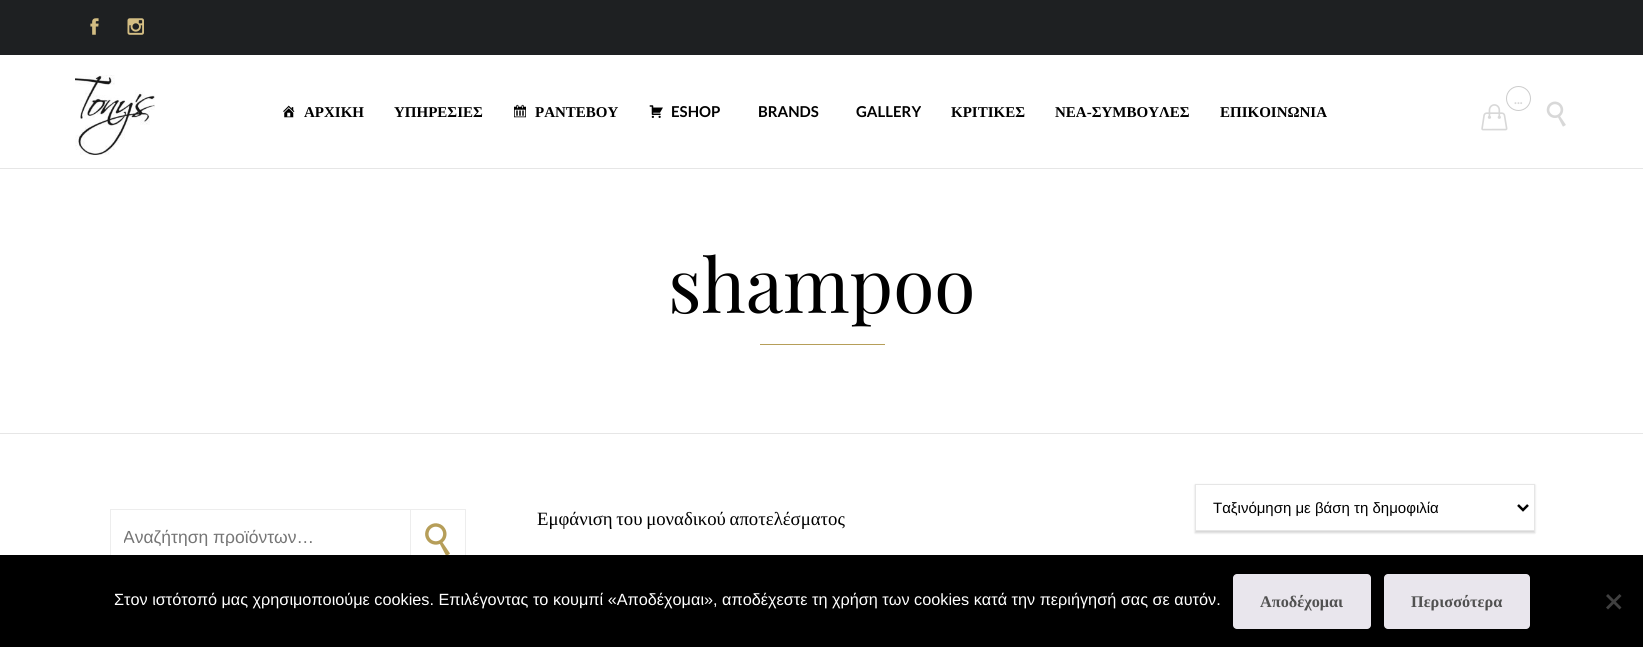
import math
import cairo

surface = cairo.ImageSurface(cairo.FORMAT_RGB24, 1643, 647)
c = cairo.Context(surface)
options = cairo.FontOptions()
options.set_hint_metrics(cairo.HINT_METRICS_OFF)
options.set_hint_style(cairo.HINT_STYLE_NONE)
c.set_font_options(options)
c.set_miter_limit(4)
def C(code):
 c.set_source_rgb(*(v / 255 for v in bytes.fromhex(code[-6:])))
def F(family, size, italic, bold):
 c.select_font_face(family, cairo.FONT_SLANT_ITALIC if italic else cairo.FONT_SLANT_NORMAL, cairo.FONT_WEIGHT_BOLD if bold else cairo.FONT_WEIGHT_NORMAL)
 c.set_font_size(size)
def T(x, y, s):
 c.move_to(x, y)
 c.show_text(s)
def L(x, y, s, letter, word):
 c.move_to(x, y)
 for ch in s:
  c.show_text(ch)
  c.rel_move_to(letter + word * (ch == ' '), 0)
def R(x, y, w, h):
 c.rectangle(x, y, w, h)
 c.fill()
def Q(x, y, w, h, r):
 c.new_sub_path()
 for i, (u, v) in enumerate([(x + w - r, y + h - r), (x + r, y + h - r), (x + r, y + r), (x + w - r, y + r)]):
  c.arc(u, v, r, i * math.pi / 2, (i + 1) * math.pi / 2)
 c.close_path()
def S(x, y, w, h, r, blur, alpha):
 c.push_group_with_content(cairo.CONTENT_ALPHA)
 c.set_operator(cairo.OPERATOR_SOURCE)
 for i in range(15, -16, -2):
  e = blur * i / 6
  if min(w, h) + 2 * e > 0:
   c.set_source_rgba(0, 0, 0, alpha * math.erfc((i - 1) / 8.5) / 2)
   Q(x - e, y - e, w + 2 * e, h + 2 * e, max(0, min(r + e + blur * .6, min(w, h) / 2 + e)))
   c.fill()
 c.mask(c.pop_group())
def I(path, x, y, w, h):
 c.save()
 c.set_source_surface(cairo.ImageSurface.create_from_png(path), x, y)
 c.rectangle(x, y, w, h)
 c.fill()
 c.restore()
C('ffffff')
c.paint()
C('e6e6e6')
R(0,168,1643,1)
C('1e2022')
R(0,0,1643,55)
I('1.png',90,18,9,17)
I('2.png',127,18,17,17)
I('3.png',75,75,80,80)
I('4.png',1481,104,27,27)
c.arc(1518.5,98.5,12,0,2 * math.pi)
C('cccccc')
c.set_line_width(1)
c.stroke()
F('Lato',13,0,1)
C('d8d8d8')
T(1514,104,'...')
I('5.png',1546,101,20,26)
I('6.png',283,105,12,13)
F('Liberation Serif',15,0,1)
C('000000')
T(304,117,'ΑΡΧΙΚΗ')
T(394,117,'ΥΠΗΡΕΣΙΕΣ')
I('7.png',514,104,12,14)
T(535,117,'ΡΑΝΤΕΒΟΥ')
I('8.png',649,105,14,13)
F('Lato',15,0,1)
T(671,117,'ESHOP')
T(758,117,'BRANDS')
T(856,117,'GALLERY')
F('Liberation Serif',15,0,1)
T(951,117,'ΚΡΙΤΙΚΕΣ')
T(1055,117,'ΝΕΑ-ΣΥΜΒΟΥΛΕΣ')
T(1220,117,'ΕΠΙΚΟΙΝΩΝΙΑ')
C('e6e6e6')
R(0,433,1643,1)
F('Playfair Display',75,0,0)
C('000000')
T(668,313,'shampoo')
C('b69e59')
R(760,344,125,1)
c.save()
c.set_fill_rule(cairo.FILL_RULE_EVEN_ODD)
c.new_path()
c.move_to(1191,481)
c.line_to(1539,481)
c.line_to(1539,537)
c.line_to(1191,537)
c.close_path()
c.move_to(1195,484)
c.line_to(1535,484)
c.line_to(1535,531)
c.line_to(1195,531)
c.close_path()
c.clip()
C('000000')
S(1195,485,340,48,0,1,.16)
c.restore()
c.rectangle(1195.5,484.5,339,46)
C('e6e6e6')
c.stroke()
c.new_path()
c.move_to(1518,505)
c.line_to(1523,510)
c.line_to(1528,505)
C('000000')
c.set_line_width(2.5)
c.stroke()
F('Liberation Sans',15,0,0)
T(1213,513,'Ταξινόμηση με βάση τη δημοφιλία')
F('Liberation Serif',18.75,0,0)
L(537,525,'Εμφάνιση του μοναδικού αποτελέσματος',0,-1)
I('9.png',425,523,25,32)
c.rectangle(410.5,509.5,55,54)
C('ededed')
c.set_line_width(1)
c.stroke()
R(110,509,300,1)
R(110,509,1,46)
c.save()
c.rectangle(124,526,256,20)
c.clip()
F('Liberation Sans',17.5,0,0)
C('757575')
T(123,543,'Αναζήτηση προϊόντων…')
c.restore()
C('000000')
R(0,555,1643,92)
F('Liberation Sans',16.25,0,0)
C('ffffff')
T(114,605,'Στον ιστότοπό μας χρησιμοποιούμε cookies. Επιλέγοντας το κουμπί «Αποδέχομαι», αποδέχεστε τη χρήση των cookies κατά την περιήγησή σας σε αυτόν.')
C('e9e6ed')
Q(1233,574,138,55,4)
c.fill()
F('Liberation Serif',16.25,0,1)
C('515151')
T(1260,607,'Αποδέχομαι')
C('e9e6ed')
Q(1384,574,146,55,4)
c.fill()
C('515151')
T(1411,607,'Περισσότερα')
C('404040')
c.new_path()
c.move_to(1619.5,594)
c.line_to(1621.5,596)
c.line_to(1608,609.5)
c.line_to(1606,607.5)
c.close_path()
c.fill()
c.new_path()
c.move_to(1606,596)
c.line_to(1608,594)
c.line_to(1621.5,607.5)
c.line_to(1619.5,609.5)
c.close_path()
c.fill()
surface.write_to_png('o.png')
